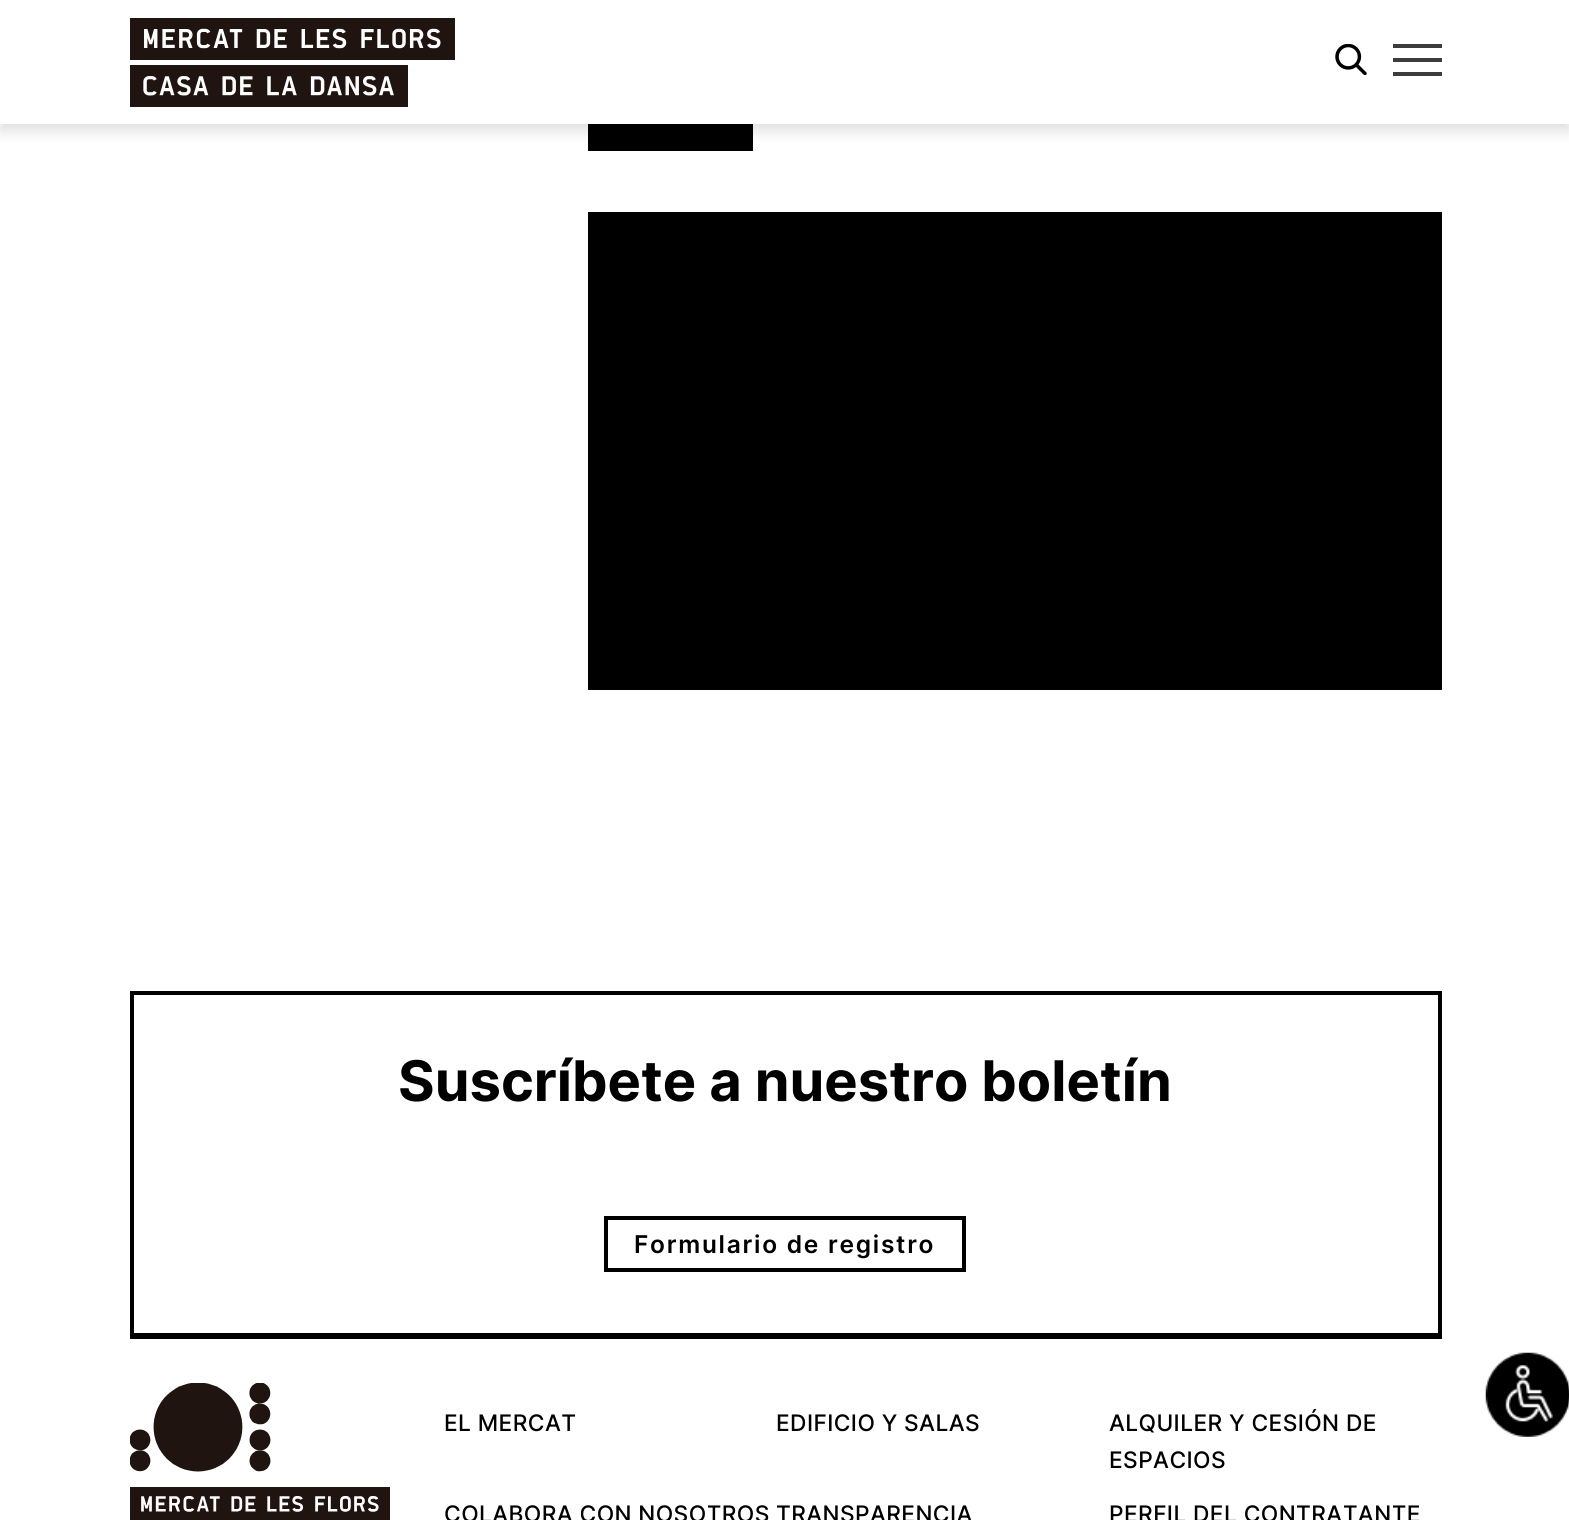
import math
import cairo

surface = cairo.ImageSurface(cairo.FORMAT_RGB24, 1569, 1520)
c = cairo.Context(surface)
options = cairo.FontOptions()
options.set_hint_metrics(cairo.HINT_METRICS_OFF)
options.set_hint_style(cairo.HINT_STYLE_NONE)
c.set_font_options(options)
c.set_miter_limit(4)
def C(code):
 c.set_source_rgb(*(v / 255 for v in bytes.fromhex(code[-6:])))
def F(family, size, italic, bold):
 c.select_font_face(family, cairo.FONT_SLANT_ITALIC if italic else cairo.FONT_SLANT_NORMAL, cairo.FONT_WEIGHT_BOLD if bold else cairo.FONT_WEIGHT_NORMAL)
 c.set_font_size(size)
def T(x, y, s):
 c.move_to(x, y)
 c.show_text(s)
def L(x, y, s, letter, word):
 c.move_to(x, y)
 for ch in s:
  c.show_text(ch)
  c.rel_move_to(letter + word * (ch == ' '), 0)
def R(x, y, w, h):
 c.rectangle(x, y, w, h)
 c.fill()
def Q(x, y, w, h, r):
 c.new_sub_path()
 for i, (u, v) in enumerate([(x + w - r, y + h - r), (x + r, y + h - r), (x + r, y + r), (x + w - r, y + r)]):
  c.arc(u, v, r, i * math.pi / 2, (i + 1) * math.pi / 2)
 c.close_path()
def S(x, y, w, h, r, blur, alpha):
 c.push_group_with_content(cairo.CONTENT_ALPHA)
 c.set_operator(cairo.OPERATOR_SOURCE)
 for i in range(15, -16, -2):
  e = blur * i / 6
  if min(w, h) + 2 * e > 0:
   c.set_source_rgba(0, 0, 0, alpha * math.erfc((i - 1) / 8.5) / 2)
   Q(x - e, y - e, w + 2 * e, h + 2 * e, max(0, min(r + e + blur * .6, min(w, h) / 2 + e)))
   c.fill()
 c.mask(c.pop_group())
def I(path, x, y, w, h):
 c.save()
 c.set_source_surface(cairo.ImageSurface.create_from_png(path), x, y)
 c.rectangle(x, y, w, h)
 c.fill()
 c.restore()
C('ffffff')
c.paint()
C('000000')
R(588,124,165,27)
C('000000')
S(0,7,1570,124,0,7,.13)
C('ffffff')
R(0,0,1569,124)
I('1.png',130,18,325,89)
I('2.png',1335,44,32,31)
C('3c3c3c')
R(1393,44,49,4)
R(1393,58,49,4)
R(1393,72,49,4)
C('000000')
R(588,212,854,478)
c.rectangle(132,993,1308,342)
c.set_line_width(4)
c.stroke()
F('Inter',56,0,1)
T(398,1101,'Suscríbete a nuestro boletín')
c.rectangle(606,1218,358,52)
c.stroke()
F('Inter SemiBold',24.5,0,0)
L(634,1253,'Formulario de registro',1.75,0)
R(130,1337,1312,2)
I('3.png',130,1383,260,137)
F('Inter Medium',22.75,0,0)
L(444,1431,'EL MERCAT',.4,0)
L(776,1431,'EDIFICIO Y SALAS',.4,0)
L(1109,1431,'ALQUILER Y CESIÓN DE',.4,0)
L(1109,1468,'ESPACIOS',.4,0)
L(444,1522,'COLABORA CON NOSOTROS',.4,0)
L(776,1522,'TRANSPARENCIA',.4,0)
L(1109,1522,'PERFIL DEL CONTRATANTE',.4,0)
I('4.png',1485,1352,84,85)
surface.write_to_png('o.png')
